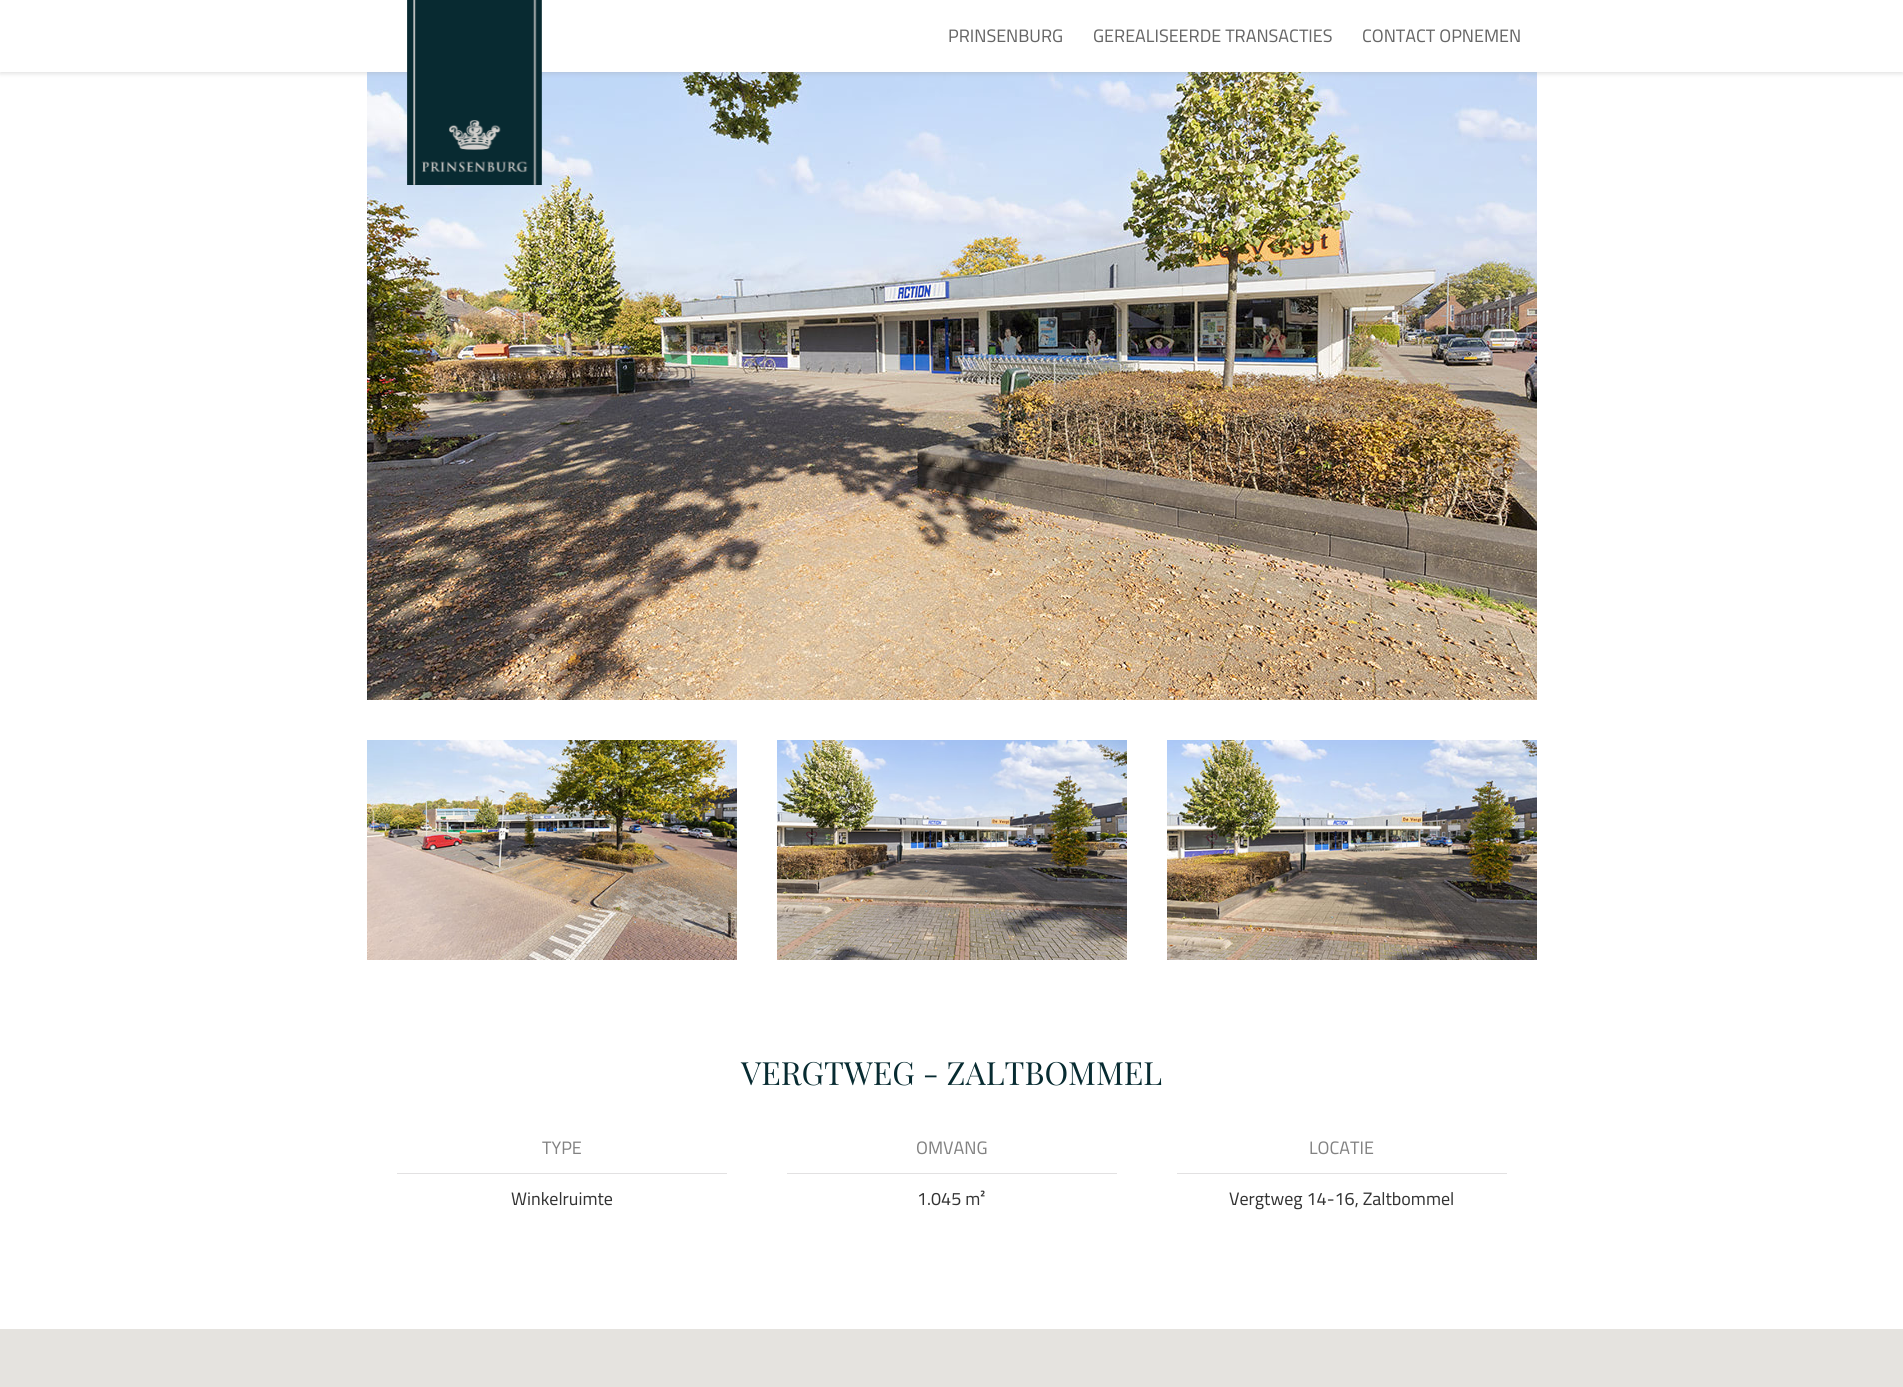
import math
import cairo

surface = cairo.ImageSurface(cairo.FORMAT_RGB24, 1903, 1387)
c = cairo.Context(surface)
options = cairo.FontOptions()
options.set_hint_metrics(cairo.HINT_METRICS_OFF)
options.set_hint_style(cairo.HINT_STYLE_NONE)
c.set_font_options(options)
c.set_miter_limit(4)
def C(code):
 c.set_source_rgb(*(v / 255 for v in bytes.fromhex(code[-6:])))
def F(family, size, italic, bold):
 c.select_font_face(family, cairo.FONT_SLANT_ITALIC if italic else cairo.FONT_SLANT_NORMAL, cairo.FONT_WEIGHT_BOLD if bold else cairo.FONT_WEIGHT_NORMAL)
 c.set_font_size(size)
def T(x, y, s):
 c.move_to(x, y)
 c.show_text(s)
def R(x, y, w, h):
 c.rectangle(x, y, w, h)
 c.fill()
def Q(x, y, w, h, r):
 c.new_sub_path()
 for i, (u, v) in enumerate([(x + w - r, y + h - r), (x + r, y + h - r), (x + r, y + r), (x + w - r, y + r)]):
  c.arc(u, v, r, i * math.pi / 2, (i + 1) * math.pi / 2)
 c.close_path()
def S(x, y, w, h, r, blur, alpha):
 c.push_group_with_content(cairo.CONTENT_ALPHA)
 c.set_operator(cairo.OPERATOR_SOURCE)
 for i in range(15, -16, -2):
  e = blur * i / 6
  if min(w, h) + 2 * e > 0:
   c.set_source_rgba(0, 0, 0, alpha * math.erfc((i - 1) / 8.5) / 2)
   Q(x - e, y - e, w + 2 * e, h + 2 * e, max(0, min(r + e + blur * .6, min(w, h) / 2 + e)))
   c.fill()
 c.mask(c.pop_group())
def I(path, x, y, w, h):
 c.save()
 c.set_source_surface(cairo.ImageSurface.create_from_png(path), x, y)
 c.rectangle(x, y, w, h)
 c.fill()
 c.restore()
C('ffffff')
c.paint()
I('2.png',367,72,1170,628)
C('979797')
S(0,2,1903,72,0,2,.26)
C('ffffff')
R(0,0,1903,72)
I('1.png',407,0,135,185)
F('Cairo',18,0,0)
C('666666')
T(948,42,'PRINSENBURG')
T(1093,42,'GEREALISEERDE TRANSACTIES')
T(1362,42,'CONTACT OPNEMEN')
I('3.png',367,740,370,220)
I('4.png',777,740,350,220)
I('5.png',1167,740,370,220)
F('Playfair Display',32,0,0)
C('072b31')
T(741,1085,'VERGTWEG - ZALTBOMMEL')
C('e2e1e2')
R(397,1173,330,1)
F('Cairo',18,0,0)
C('828282')
T(542,1154,'TYPE')
C('333333')
T(511,1205,'Winkelruimte')
C('e2e1e2')
R(787,1173,330,1)
C('828282')
T(916,1154,'OMVANG')
C('333333')
T(917,1205,'1.045 m²')
C('e2e1e2')
R(1177,1173,330,1)
C('828282')
T(1309,1154,'LOCATIE')
C('333333')
T(1229,1205,'Vergtweg 14-16, Zaltbommel')
C('e5e3df')
R(0,1329,1903,58)
surface.write_to_png('o.png')
